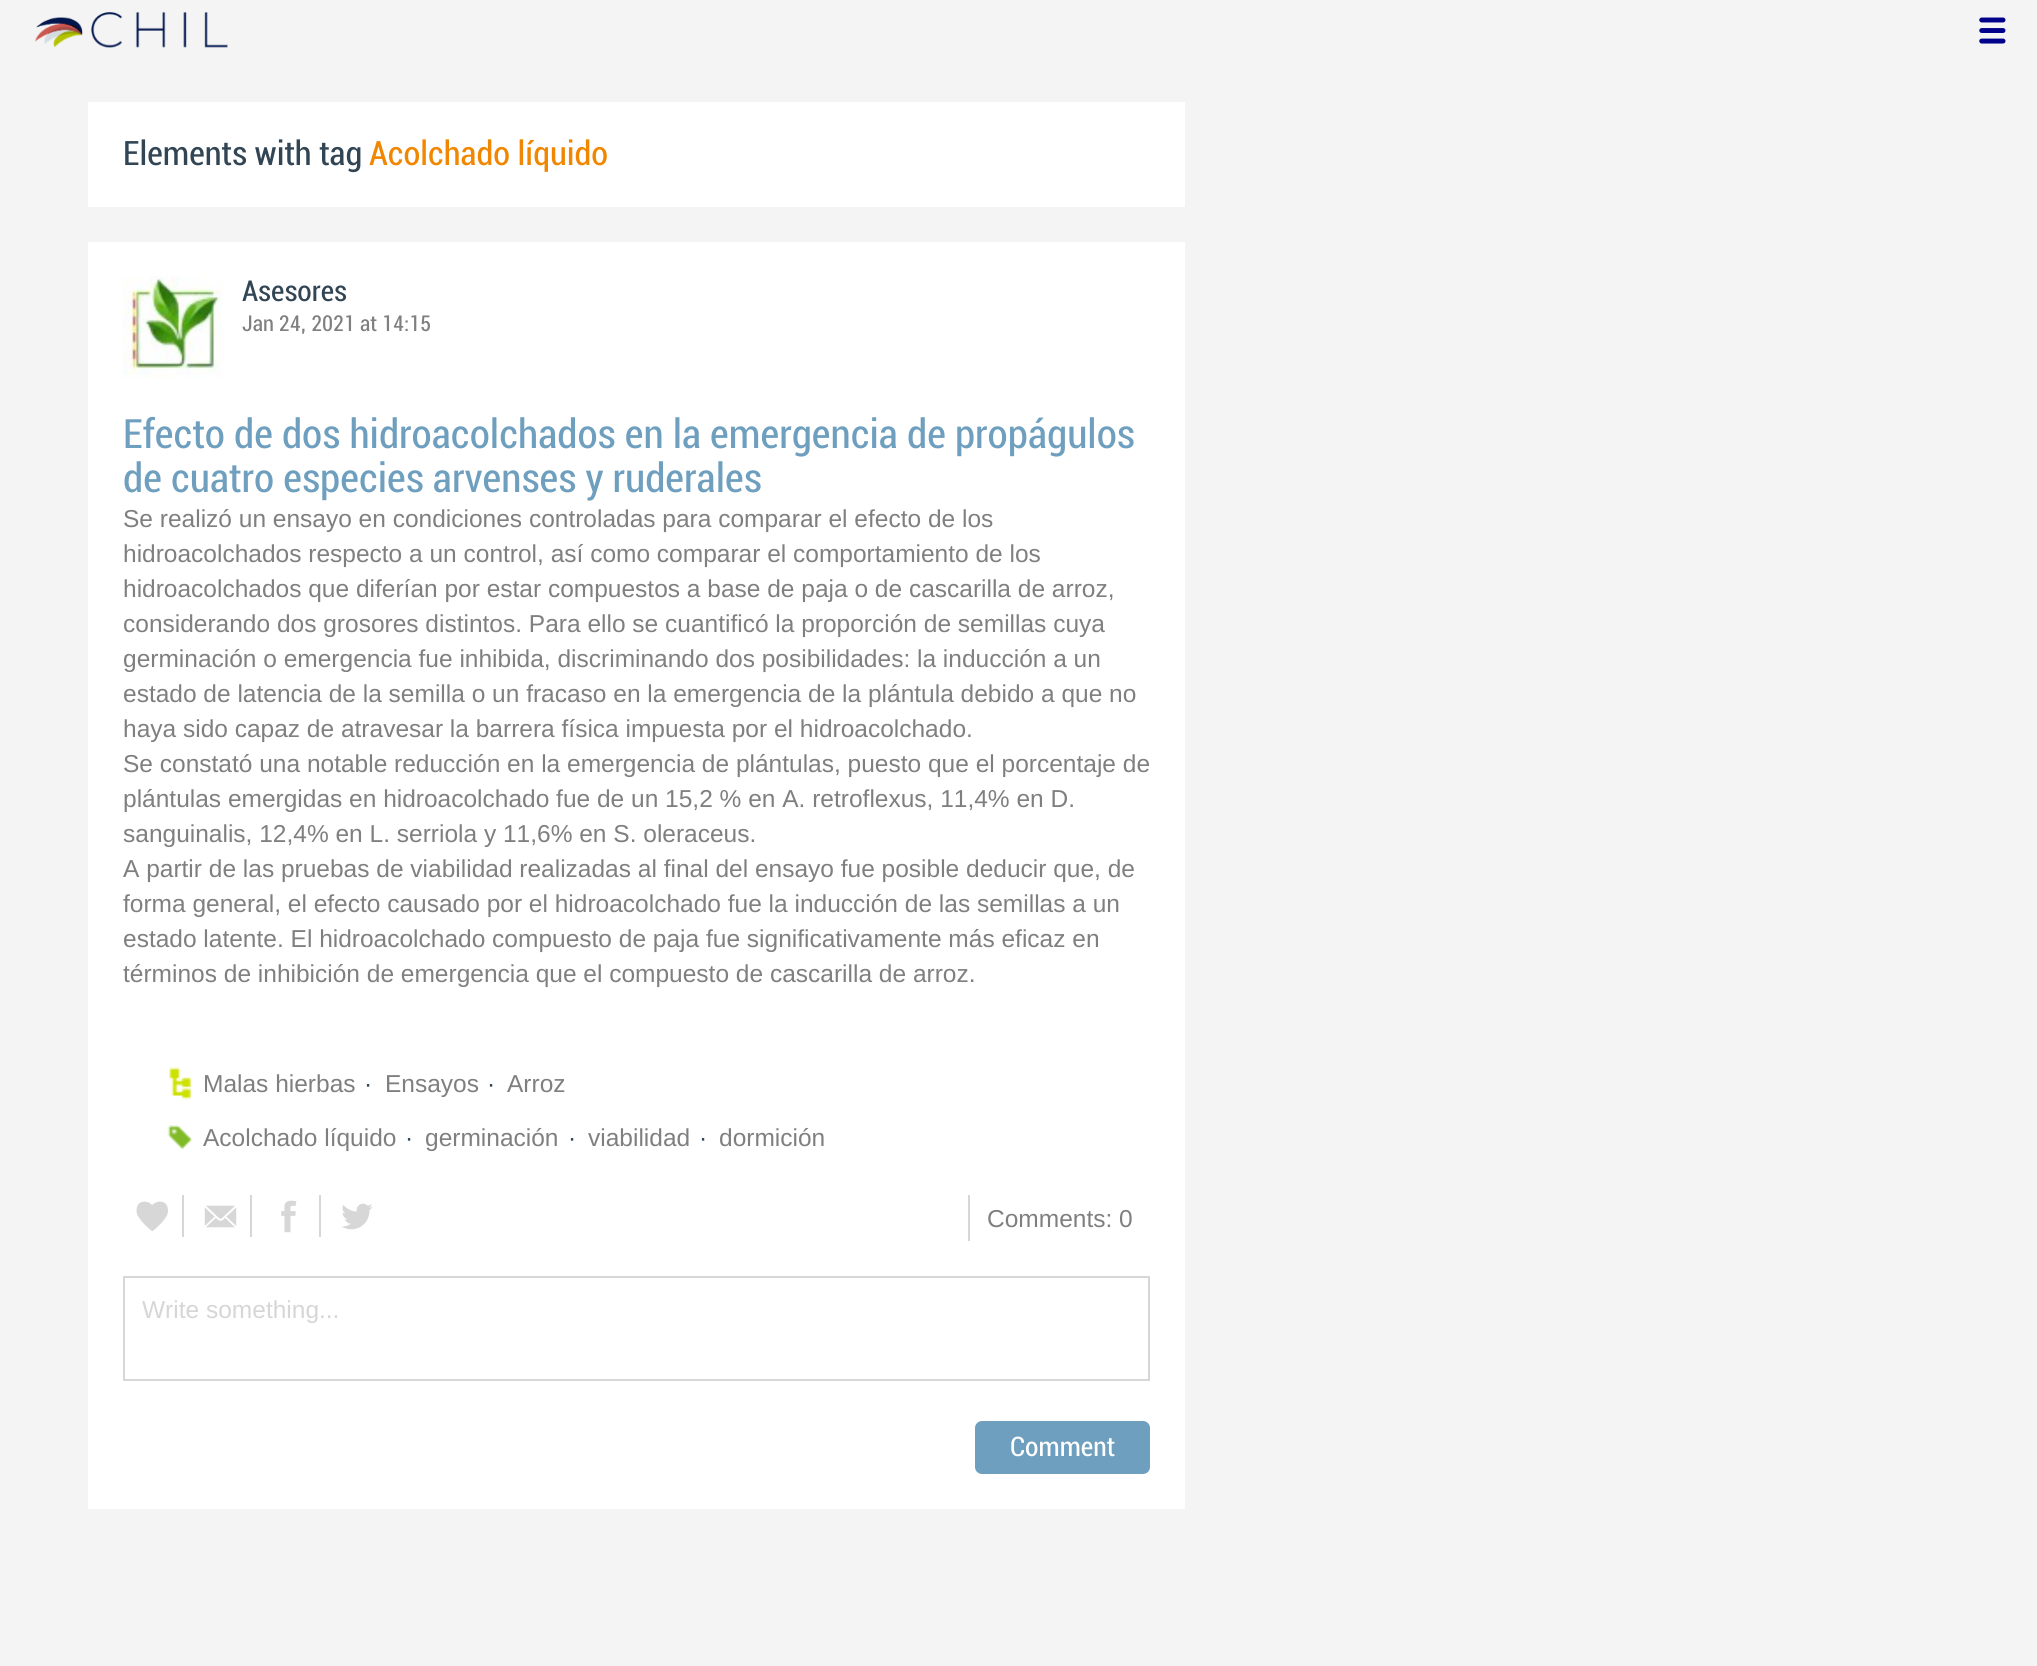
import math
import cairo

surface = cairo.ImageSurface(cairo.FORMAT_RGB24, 2037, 1666)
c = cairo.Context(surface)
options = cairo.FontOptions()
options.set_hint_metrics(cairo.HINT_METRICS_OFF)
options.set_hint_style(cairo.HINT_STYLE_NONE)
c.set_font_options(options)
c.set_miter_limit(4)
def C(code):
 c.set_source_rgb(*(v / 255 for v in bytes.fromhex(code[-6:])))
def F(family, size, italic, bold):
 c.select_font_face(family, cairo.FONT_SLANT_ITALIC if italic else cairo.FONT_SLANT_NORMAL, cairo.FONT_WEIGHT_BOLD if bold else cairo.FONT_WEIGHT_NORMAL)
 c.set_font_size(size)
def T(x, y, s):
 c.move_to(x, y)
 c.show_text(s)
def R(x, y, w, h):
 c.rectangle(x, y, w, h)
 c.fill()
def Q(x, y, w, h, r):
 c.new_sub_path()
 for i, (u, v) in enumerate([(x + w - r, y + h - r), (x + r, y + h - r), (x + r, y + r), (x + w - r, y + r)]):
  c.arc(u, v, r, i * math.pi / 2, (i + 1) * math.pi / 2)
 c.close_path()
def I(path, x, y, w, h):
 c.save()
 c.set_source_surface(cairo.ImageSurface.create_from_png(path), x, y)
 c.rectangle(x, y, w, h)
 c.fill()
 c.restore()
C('f4f4f4')
c.paint()
I('1.png',35,12,193,36)
I('2.png',1979,17,27,27)
C('ffffff')
R(88,102,1097,105)
F('Roboto',35,0,0)
C('314555')
T(123,165,'Elements with tag')
C('f18700')
T(369,165,'Acolchado líquido')
C('ffffff')
R(88,242,1097,1267)
I('3.png',122,276,102,102)
F('Roboto',30,0,0)
C('314555')
T(242,301,'Asesores')
F('Roboto',22.75,0,0)
C('7f7f7f')
T(242,331,'Jan 24, 2021 at 14:15')
F('Roboto',42,0,0)
C('6e9fbe')
T(123,448,'Efecto de dos hidroacolchados en la emergencia de propágulos')
T(123,492,'de cuatro especies arvenses y ruderales')
F('Liberation Sans',24.5,0,0)
C('7f7f7f')
T(123,527,'Se realizó un ensayo en condiciones controladas para comparar el efecto de los')
T(123,562,'hidroacolchados respecto a un control, así como comparar el comportamiento de los')
T(123,597,'hidroacolchados que diferían por estar compuestos a base de paja o de cascarilla de arroz,')
T(123,632,'considerando dos grosores distintos. Para ello se cuantificó la proporción de semillas cuya')
T(123,667,'germinación o emergencia fue inhibida, discriminando dos posibilidades: la inducción a un')
T(123,702,'estado de latencia de la semilla o un fracaso en la emergencia de la plántula debido a que no')
T(123,737,'haya sido capaz de atravesar la barrera física impuesta por el hidroacolchado.')
T(123,772,'Se constató una notable reducción en la emergencia de plántulas, puesto que el porcentaje de')
T(123,807,'plántulas emergidas en hidroacolchado fue de un 15,2 % en A. retroflexus, 11,4% en D.')
T(123,842,'sanguinalis, 12,4% en L. serriola y 11,6% en S. oleraceus.')
T(123,877,'A partir de las pruebas de viabilidad realizadas al final del ensayo fue posible deducir que, de')
T(123,912,'forma general, el efecto causado por el hidroacolchado fue la inducción de las semillas a un')
T(123,947,'estado latente. El hidroacolchado compuesto de paja fue significativamente más eficaz en')
T(123,982,'términos de inhibición de emergencia que el compuesto de cascarilla de arroz.')
I('4.png',169,1067,23,33)
T(203,1092,'Malas hierbas')
C('314555')
T(364,1092,'·')
C('7f7f7f')
T(385,1092,'Ensayos')
C('314555')
T(487,1092,'·')
C('7f7f7f')
T(507,1092,'Arroz')
I('5.png',167,1125,26,25)
T(203,1146,'Acolchado líquido')
C('314555')
T(405,1146,'·')
C('7f7f7f')
T(425,1146,'germinación')
C('314555')
T(568,1146,'·')
C('7f7f7f')
T(588,1146,'viabilidad')
C('314555')
T(699,1146,'·')
C('7f7f7f')
T(719,1146,'dormición')
C('d7d7d7')
R(182,1195,2,42)
I('6.png',136,1201,32,31)
R(250,1195,2,42)
I('7.png',204,1205,33,23)
R(319,1195,2,42)
I('8.png',281,1200,16,33)
I('9.png',341,1203,32,27)
R(968,1195,2,46)
C('7f7f7f')
T(987,1227,'Comments: 0')
c.rectangle(124,1277,1025,103)
C('d7d7d7')
c.stroke()
C('d6d6d6')
T(142,1318,'Write something...')
C('6e9fbe')
Q(975,1421,175,53,7)
c.fill()
F('Roboto',28,0,0)
C('ffffff')
T(1010,1456,'Comment')
surface.write_to_png('o.png')
